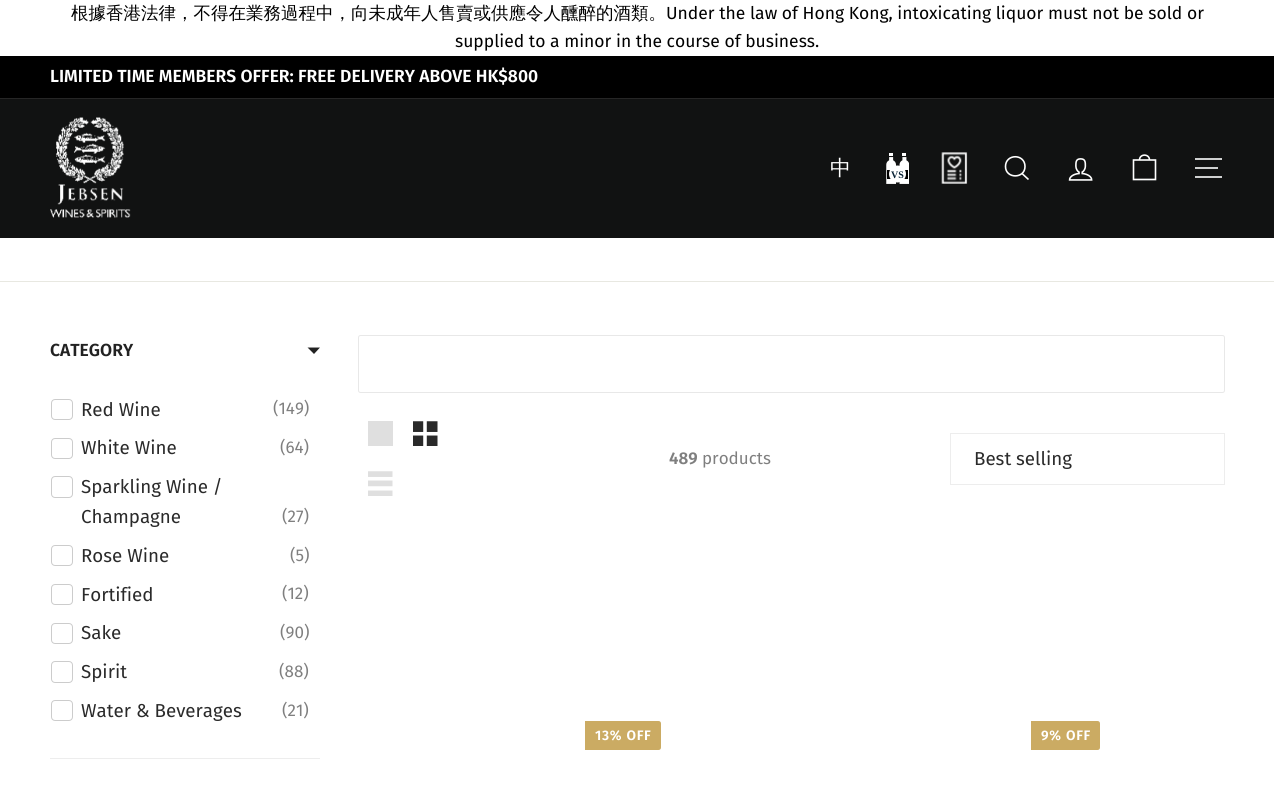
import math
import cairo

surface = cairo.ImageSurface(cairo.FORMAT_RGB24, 1274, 789)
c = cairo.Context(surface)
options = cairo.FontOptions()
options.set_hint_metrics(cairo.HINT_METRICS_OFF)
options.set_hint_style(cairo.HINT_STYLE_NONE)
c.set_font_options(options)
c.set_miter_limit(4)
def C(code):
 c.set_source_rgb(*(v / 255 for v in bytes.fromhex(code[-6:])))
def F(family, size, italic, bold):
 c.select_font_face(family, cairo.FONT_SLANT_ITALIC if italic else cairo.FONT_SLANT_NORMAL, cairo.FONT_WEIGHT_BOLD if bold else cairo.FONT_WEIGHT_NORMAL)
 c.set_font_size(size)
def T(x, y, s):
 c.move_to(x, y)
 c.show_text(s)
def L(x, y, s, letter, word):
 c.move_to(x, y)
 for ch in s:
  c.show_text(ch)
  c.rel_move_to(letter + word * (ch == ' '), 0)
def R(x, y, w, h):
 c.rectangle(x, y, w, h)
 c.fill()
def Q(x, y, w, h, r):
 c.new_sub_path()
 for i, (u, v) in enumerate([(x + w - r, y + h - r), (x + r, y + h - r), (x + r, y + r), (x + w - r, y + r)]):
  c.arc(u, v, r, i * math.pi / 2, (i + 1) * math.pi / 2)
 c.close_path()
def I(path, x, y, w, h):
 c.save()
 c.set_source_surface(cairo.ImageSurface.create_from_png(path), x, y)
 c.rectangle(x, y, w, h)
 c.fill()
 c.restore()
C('ffffff')
c.paint()
F('WenQuanYi Zen Hei Medium',17.5,0,0)
C('000000')
T(71,19,'根據香港法律，不得在業務過程中，向未成年人售賣或供應令人醺醉的酒類。')
F('Fira Sans',17.5,0,0)
T(666,19,'Under the law of Hong Kong, intoxicating liquor must not be sold or')
T(455,47,'supplied to a minor in the course of business.')
R(0,56,1274,42)
F('Fira Sans SemiBold',17.5,0,0)
C('ffffff')
T(50,82,'LIMITED TIME MEMBERS OFFER: FREE DELIVERY ABOVE HK$800')
C('262626')
R(0,98,1274,1)
C('111212')
R(0,99,1274,139)
I('1.png',50,117,81,101)
F('WenQuanYi Zen Hei Medium',21,0,0)
C('ffffff')
T(830,175,'中')
I('2.png',886,153,23,31)
F('Liberation Serif',10,0,1)
C('072134')
T(891,178,'VS')
I('3.png',941,152,27,32)
c.new_path()
c.move_to(1025,166.5)
c.curve_to(1025,179,1005.5,179,1005.5,166.5)
c.curve_to(1005.5,153.5,1025,153.5,1025,166.5)
c.close_path()
c.move_to(1028.5,179.5)
c.line_to(1022,173.5)
C('ffffff')
c.set_line_width(1.6)
c.stroke()
I('4.png',1068,158,25,23)
c.new_path()
c.move_to(1139.5,160)
c.curve_to(1139.5,153.5,1149.5,153.5,1149.5,160)
c.move_to(1133.5,160)
c.line_to(1155.5,160)
c.line_to(1155.5,179.5)
c.line_to(1133.5,179.5)
c.close_path()
c.stroke()
C('cfd0d0')
R(1195,158,27,2)
R(1195,167,23,2)
R(1195,176,27,2)
C('e8e8e1')
R(0,281,1274,1)
C('ededed')
R(50,758,270,1)
F('Fira Sans SemiBold',17.5,0,0)
C('222222')
T(50,356,'CATEGORY')
c.new_path()
c.move_to(307.5,347.5)
c.line_to(320,347.5)
c.line_to(314,354)
c.close_path()
c.fill()
Q(51.5,399.5,21,20,3.5)
C('cccccc')
c.set_line_width(1)
c.stroke()
F('Fira Sans',18.75,0,0)
C('2a2a2a')
T(81,416,'Red Wine')
F('Fira Sans',17,0,0)
C('7f7f7f')
T(273,414,'(149)')
Q(51.5,438.5,21,20,3.5)
C('cccccc')
c.stroke()
F('Fira Sans',18.75,0,0)
C('2a2a2a')
T(81,454,'White Wine')
F('Fira Sans',17,0,0)
C('7f7f7f')
T(280,453,'(64)')
Q(51.5,476.5,21,21,3.5)
C('cccccc')
c.stroke()
F('Fira Sans',18.75,0,0)
C('2a2a2a')
T(81,493,'Sparkling Wine /')
T(81,523,'Champagne')
F('Fira Sans',17,0,0)
C('7f7f7f')
T(282,522,'(27)')
Q(51.5,545.5,21,20,3.5)
C('cccccc')
c.stroke()
F('Fira Sans',18.75,0,0)
C('2a2a2a')
T(81,562,'Rose Wine')
F('Fira Sans',17,0,0)
C('7f7f7f')
T(290,561,'(5)')
Q(51.5,584.5,21,20,3.5)
C('cccccc')
c.stroke()
F('Fira Sans',18.75,0,0)
C('2a2a2a')
T(81,601,'Fortified')
F('Fira Sans',17,0,0)
C('7f7f7f')
T(282,599,'(12)')
Q(51.5,623.5,21,20,3.5)
C('cccccc')
c.stroke()
F('Fira Sans',18.75,0,0)
C('2a2a2a')
T(81,639,'Sake')
F('Fira Sans',17,0,0)
C('7f7f7f')
T(280,638,'(90)')
Q(51.5,661.5,21,21,3.5)
C('cccccc')
c.stroke()
F('Fira Sans',18.75,0,0)
C('2a2a2a')
T(81,678,'Spirit')
F('Fira Sans',17,0,0)
C('7f7f7f')
T(279,677,'(88)')
Q(51.5,700.5,21,20,3.5)
C('cccccc')
c.stroke()
F('Fira Sans',18.75,0,0)
C('2a2a2a')
T(81,717,'Water & Beverages')
F('Fira Sans',17,0,0)
C('7f7f7f')
T(282,716,'(21)')
Q(358.5,335.5,866,57,2)
C('e8e8e8')
c.stroke()
C('dfdfdf')
R(368,421,25,25)
I('5.png',413,421,25,25)
I('6.png',368,471,25,25)
F('Fira Sans SemiBold',17,0,0)
C('7f7f7f')
T(669,464,'489')
F('Fira Sans',17,0,0)
T(702,464,'products')
c.rectangle(950.5,433.5,274,51)
C('ededed')
c.stroke()
F('Fira Sans',18.75,0,0)
C('2a2a2a')
T(974,465,'Best selling')
C('cbab63')
c.new_path()
c.move_to(585,721)
c.line_to(658.5,721)
c.curve_to(660,721,661,722,661,723.5)
c.line_to(661,747.5)
c.curve_to(661,749,660,750,658.5,750)
c.line_to(585,750)
c.close_path()
c.fill()
F('Fira Sans SemiBold',13.75,0,0)
C('ffffff')
L(595,740,'13% OFF',.75,0)
C('cbab63')
c.new_path()
c.move_to(1031,721)
c.line_to(1097.5,721)
c.curve_to(1099,721,1100,722,1100,723.5)
c.line_to(1100,747.5)
c.curve_to(1100,749,1099,750,1097.5,750)
c.line_to(1031,750)
c.close_path()
c.fill()
C('ffffff')
L(1041,740,'9% OFF',.75,0)
surface.write_to_png('o.png')
